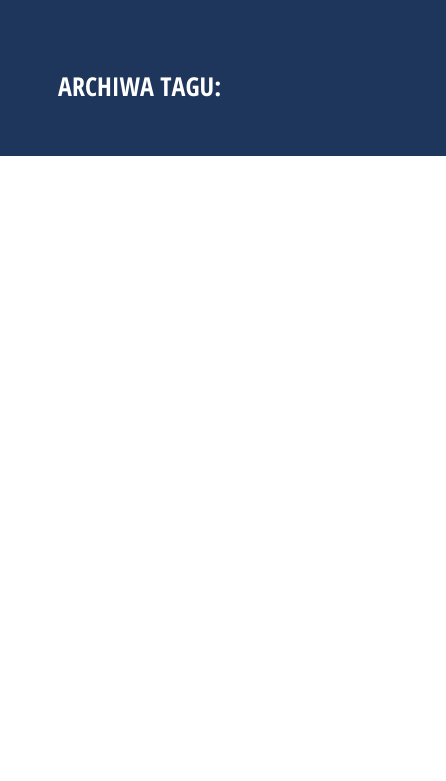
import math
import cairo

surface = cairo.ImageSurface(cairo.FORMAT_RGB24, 446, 781)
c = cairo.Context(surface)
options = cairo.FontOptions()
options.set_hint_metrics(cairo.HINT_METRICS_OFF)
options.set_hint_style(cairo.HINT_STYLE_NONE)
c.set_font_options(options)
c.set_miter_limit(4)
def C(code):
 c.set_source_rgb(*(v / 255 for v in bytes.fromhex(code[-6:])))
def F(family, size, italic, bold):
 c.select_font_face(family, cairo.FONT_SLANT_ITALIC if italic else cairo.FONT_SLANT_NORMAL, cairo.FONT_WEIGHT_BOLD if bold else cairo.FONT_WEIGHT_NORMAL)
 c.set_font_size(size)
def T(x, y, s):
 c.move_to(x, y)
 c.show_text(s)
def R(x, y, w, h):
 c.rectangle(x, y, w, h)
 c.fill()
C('ffffff')
c.paint()
C('1f365c')
R(0,0,446,156)
F('Open Sans Condensed',26,0,1)
C('ffffff')
T(58,96,'ARCHIWA TAGU:')
surface.write_to_png('o.png')
